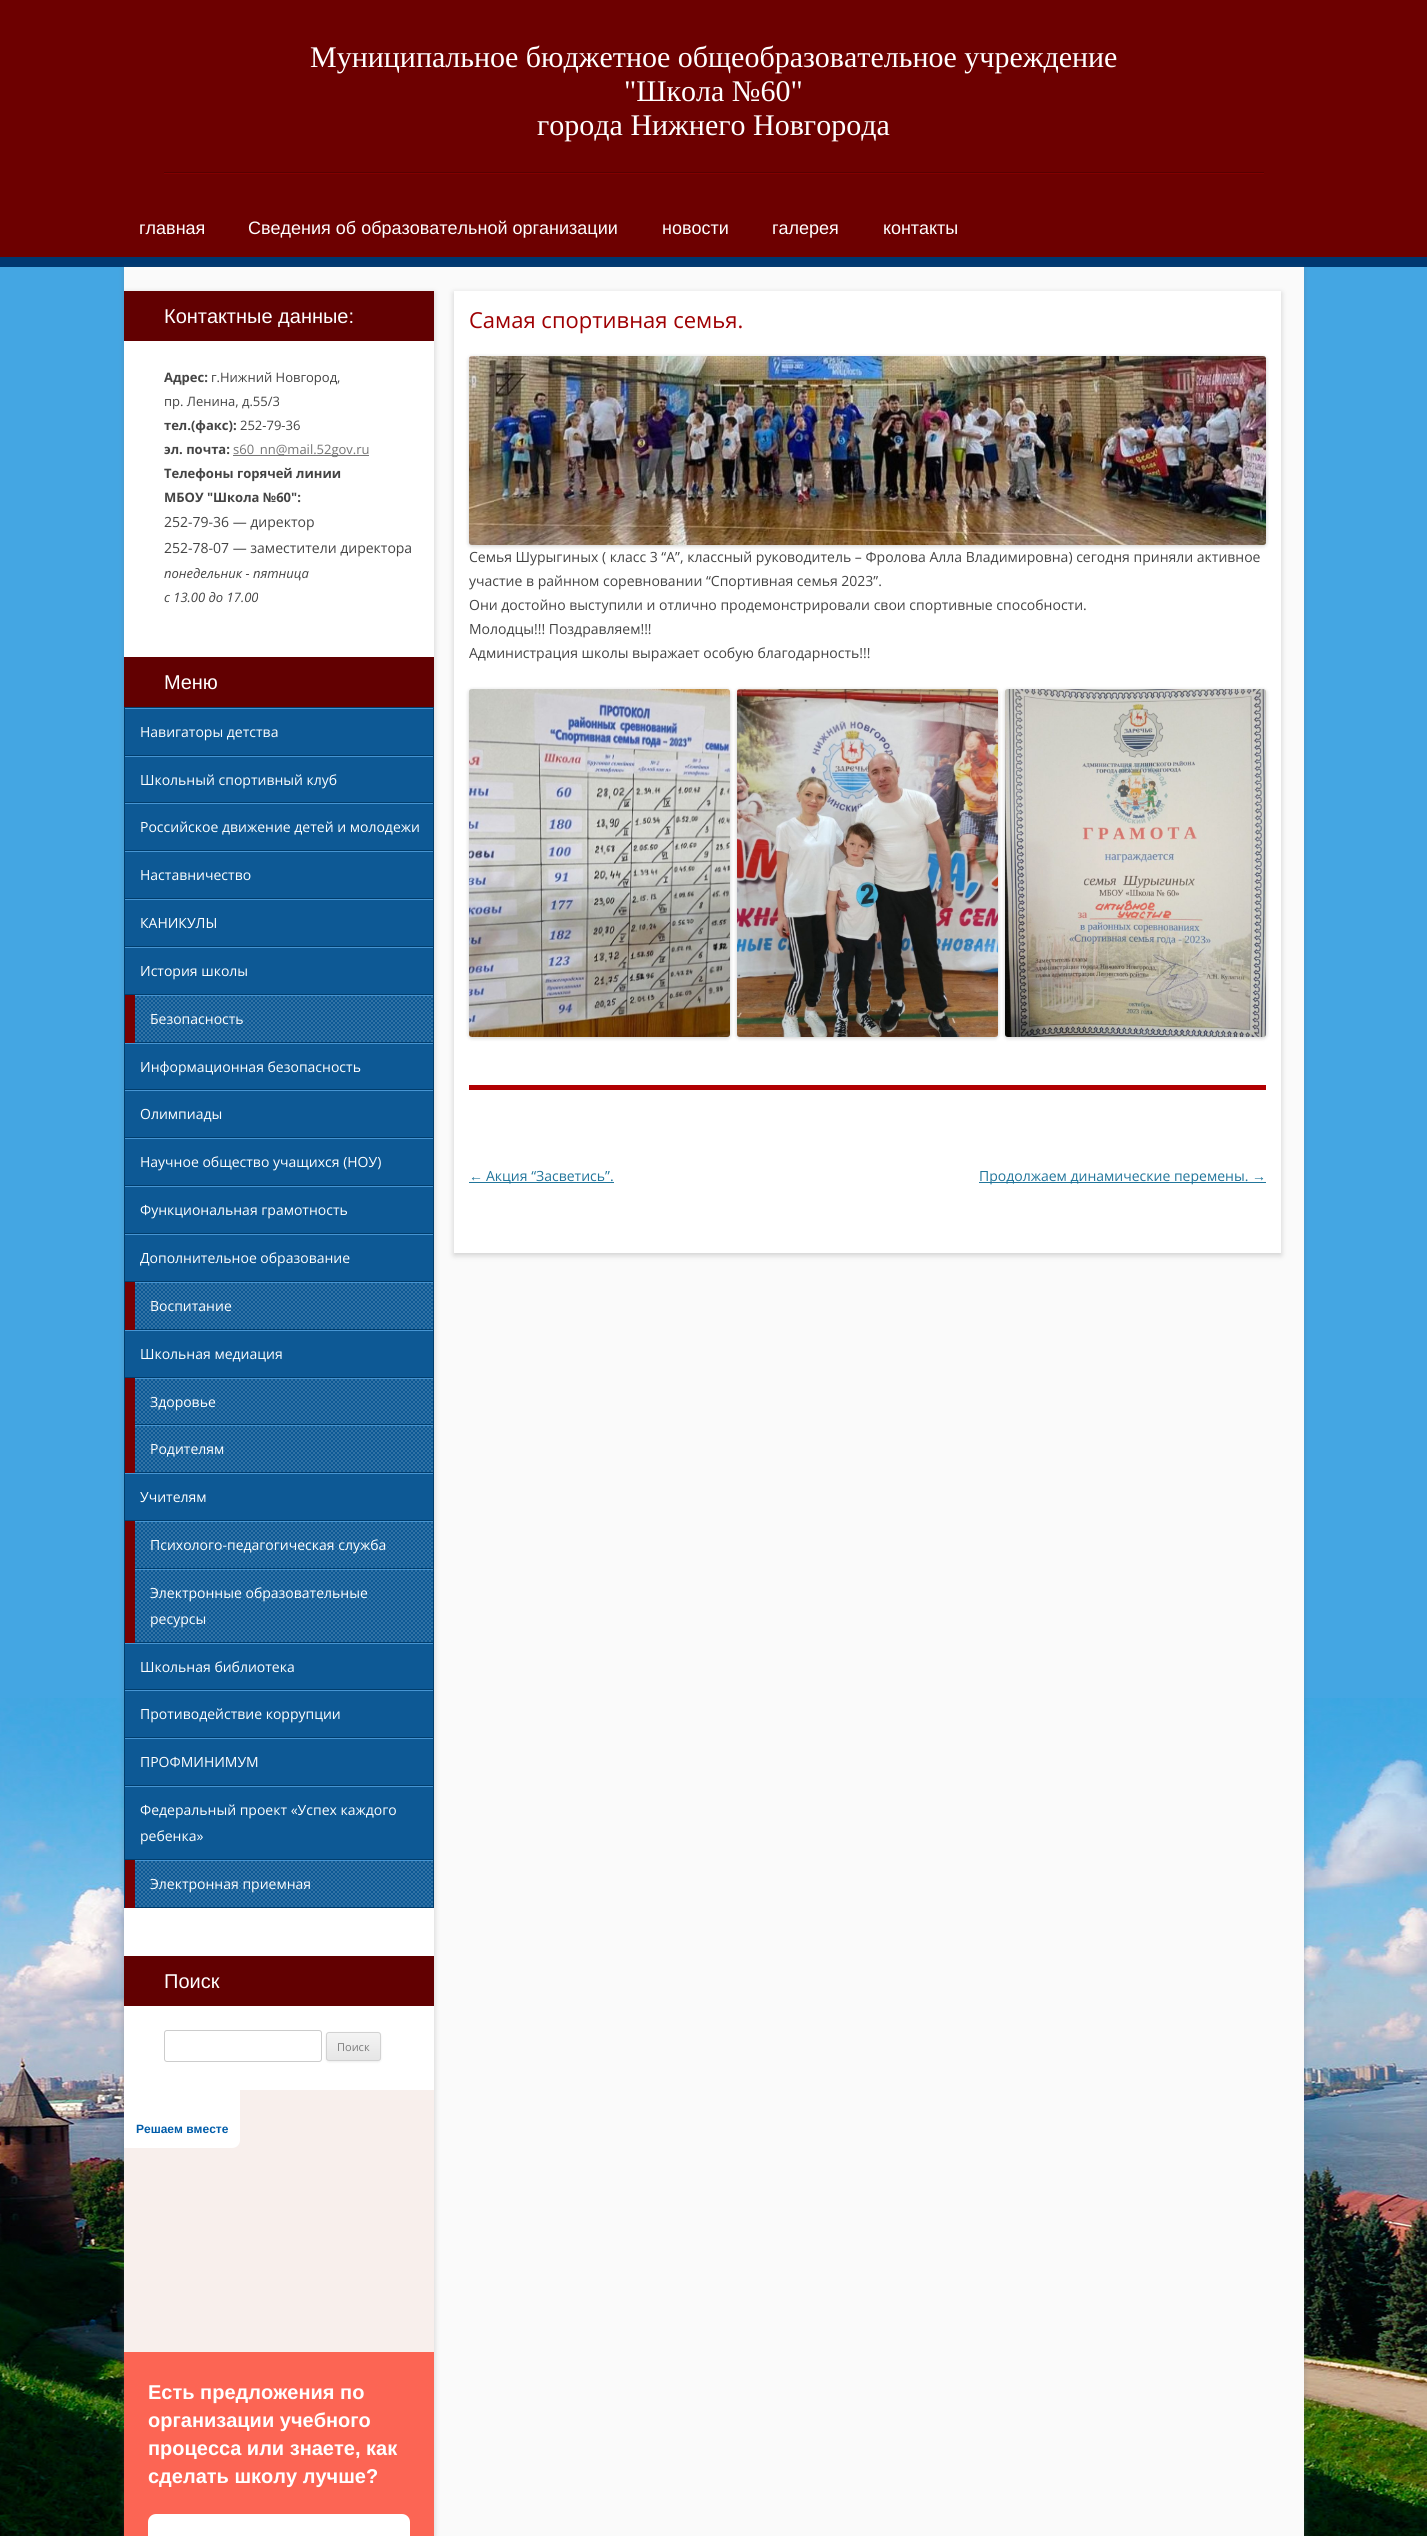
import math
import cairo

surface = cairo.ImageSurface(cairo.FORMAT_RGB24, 1427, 2536)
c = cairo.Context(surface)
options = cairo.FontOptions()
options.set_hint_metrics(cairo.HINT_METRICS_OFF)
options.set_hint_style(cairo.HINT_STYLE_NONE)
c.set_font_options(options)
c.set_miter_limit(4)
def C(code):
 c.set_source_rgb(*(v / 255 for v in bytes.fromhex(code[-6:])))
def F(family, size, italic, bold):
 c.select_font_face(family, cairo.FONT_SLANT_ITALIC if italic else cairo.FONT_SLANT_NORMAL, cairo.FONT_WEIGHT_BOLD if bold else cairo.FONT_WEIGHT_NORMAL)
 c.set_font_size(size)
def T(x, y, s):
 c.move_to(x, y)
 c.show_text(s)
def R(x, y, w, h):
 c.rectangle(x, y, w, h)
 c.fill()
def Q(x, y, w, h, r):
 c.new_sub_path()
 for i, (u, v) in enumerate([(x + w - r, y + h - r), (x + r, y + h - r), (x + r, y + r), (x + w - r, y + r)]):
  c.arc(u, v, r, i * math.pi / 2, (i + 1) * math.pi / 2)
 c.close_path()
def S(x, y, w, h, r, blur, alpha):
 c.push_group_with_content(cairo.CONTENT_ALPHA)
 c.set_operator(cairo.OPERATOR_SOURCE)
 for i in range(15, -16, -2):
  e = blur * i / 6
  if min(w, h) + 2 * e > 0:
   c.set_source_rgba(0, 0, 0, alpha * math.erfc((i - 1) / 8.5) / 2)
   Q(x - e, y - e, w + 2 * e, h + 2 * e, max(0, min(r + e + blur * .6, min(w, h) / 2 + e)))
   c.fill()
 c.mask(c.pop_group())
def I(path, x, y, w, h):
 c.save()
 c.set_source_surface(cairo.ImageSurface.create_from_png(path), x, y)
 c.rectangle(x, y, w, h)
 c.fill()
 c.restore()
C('44a6e3')
c.paint()
I('1.png',0,1698,1427,838)
C('6d0000')
R(0,0,1427,257)
C('003871')
R(0,257,1427,10)
F('Liberation Serif',30,0,0)
C('ffffff')
T(310,67,'Муниципальное бюджетное общеобразовательное учреждение')
T(624,101,'"Школа №60"')
T(537,135,'города Нижнего Новгорода')
C('560000')
R(164,172,1100,1)
C('820000')
R(164,173,1100,1)
F('Liberation Sans',18,0,0)
C('ffffff')
T(139,234,'главная')
T(248,234,'Сведения об образовательной организации')
T(662,234,'новости')
T(772,234,'галерея')
T(883,234,'контакты')
C('646464')
S(124,269,1180,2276,0,3,.3)
C('fafafa')
R(124,267,1180,2269)
c.save()
c.rectangle(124,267,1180,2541)
c.clip()
C('646464')
S(124,293,310,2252,0,3,.3)
c.restore()
C('ffffff')
R(124,341,310,1749)
C('620001')
R(124,291,310,50)
F('Liberation Sans',20,0,0)
C('ffffff')
T(164,323,'Контактные данные:')
F('Open Sans',13,0,1)
C('444444')
T(164,382,'Адрес:')
F('Open Sans',13,0,0)
T(211,382,'г.Нижний Новгород,')
T(164,406,'пр. Ленина, д.55/3')
F('Open Sans',13,0,1)
T(164,430,'тел.(факс):')
F('Open Sans',13,0,0)
T(240,430,'252-79-36')
F('Open Sans',13,0,1)
T(164,454,'эл. почта:')
C('757575')
R(233,455,136,1)
F('Open Sans',13,0,0)
T(233,454,'s60_nn@mail.52gov.ru')
F('Open Sans',13,0,1)
C('444444')
T(164,478,'Телефоны горячей линии')
T(164,502,'МБОУ "Школа №60":')
F('Open Sans',14,0,0)
T(164,527,'252-79-36 — директор')
T(164,553,'252-78-07 — заместители директора')
F('Open Sans',13,1,0)
T(164,578,'понедельник - пятница')
T(164,602,'с 13.00 до 17.00')
C('620001')
R(124,657,310,50)
F('Liberation Sans',20,0,0)
C('ffffff')
T(164,689,'Меню')
C('780002')
R(125,995,10,913)
C('013d6c')
R(124,707,310,1)
R(433,707,1,1201)
R(124,707,1,1201)
C('0d5995')
R(125,709,308,46)
C('4695d3')
R(125,708,308,1)
C('013d6c')
R(125,755,308,1)
F('Open Sans',14,0,0)
C('ffffff')
T(140,737,'Навигаторы детства')
C('0d5995')
R(125,757,308,45)
C('4695d3')
R(125,756,308,1)
C('013d6c')
R(125,802,308,1)
C('ffffff')
T(140,785,'Школьный спортивный клуб')
C('0d5995')
R(125,804,308,46)
C('4695d3')
R(125,803,308,1)
C('013d6c')
R(125,850,308,1)
C('ffffff')
T(140,832,'Российское движение детей и молодежи')
C('0d5995')
R(125,852,308,46)
C('4695d3')
R(125,851,308,1)
C('013d6c')
R(125,898,308,1)
C('ffffff')
T(140,880,'Наставничество')
C('0d5995')
R(125,900,308,46)
C('4695d3')
R(125,899,308,1)
C('013d6c')
R(125,946,308,1)
C('ffffff')
T(140,928,'КАНИКУЛЫ')
C('0d5995')
R(125,948,308,46)
C('4695d3')
R(125,947,308,1)
C('013d6c')
R(125,994,308,1)
C('ffffff')
T(140,976,'История школы')
C('0d5995')
R(135,996,298,46)
I('2.png',135,996,298,46)
C('4695d3')
R(135,995,298,1)
C('013d6c')
R(135,1042,298,1)
C('ffffff')
T(150,1024,'Безопасность')
C('0d5995')
R(125,1044,308,45)
C('4695d3')
R(125,1043,308,1)
C('013d6c')
R(125,1089,308,1)
C('ffffff')
T(140,1072,'Информационная безопасность')
C('0d5995')
R(125,1091,308,46)
C('4695d3')
R(125,1090,308,1)
C('013d6c')
R(125,1137,308,1)
C('ffffff')
T(140,1119,'Олимпиады')
C('0d5995')
R(125,1139,308,46)
C('4695d3')
R(125,1138,308,1)
C('013d6c')
R(125,1185,308,1)
C('ffffff')
T(140,1167,'Научное общество учащихся (НОУ)')
C('0d5995')
R(125,1187,308,46)
C('4695d3')
R(125,1186,308,1)
C('013d6c')
R(125,1233,308,1)
C('ffffff')
T(140,1215,'Функциональная грамотность')
C('0d5995')
R(125,1235,308,46)
C('4695d3')
R(125,1234,308,1)
C('013d6c')
R(125,1281,308,1)
C('ffffff')
T(140,1263,'Дополнительное образование')
C('0d5995')
R(135,1283,298,46)
I('2.png',135,1283,298,46)
C('4695d3')
R(135,1282,298,1)
C('013d6c')
R(135,1329,298,1)
C('ffffff')
T(150,1311,'Воспитание')
C('0d5995')
R(125,1331,308,46)
C('4695d3')
R(125,1330,308,1)
C('013d6c')
R(125,1377,308,1)
C('ffffff')
T(140,1359,'Школьная медиация')
C('0d5995')
R(135,1379,298,45)
I('3.png',135,1379,298,45)
C('4695d3')
R(135,1378,298,1)
C('013d6c')
R(135,1424,298,1)
C('ffffff')
T(150,1407,'Здоровье')
C('0d5995')
R(135,1426,298,46)
I('2.png',135,1426,298,46)
C('4695d3')
R(135,1425,298,1)
C('013d6c')
R(135,1472,298,1)
C('ffffff')
T(150,1454,'Родителям')
C('0d5995')
R(125,1474,308,46)
C('4695d3')
R(125,1473,308,1)
C('013d6c')
R(125,1520,308,1)
C('ffffff')
T(140,1502,'Учителям')
C('0d5995')
R(135,1522,298,46)
I('2.png',135,1522,298,46)
C('4695d3')
R(135,1521,298,1)
C('013d6c')
R(135,1568,298,1)
C('ffffff')
T(150,1550,'Психолого-педагогическая служба')
C('0d5995')
R(135,1570,298,72)
I('4.png',135,1570,298,72)
C('4695d3')
R(135,1569,298,1)
C('013d6c')
R(135,1642,298,1)
C('ffffff')
T(150,1598,'Электронные образовательные')
T(150,1624,'ресурсы')
C('0d5995')
R(125,1644,308,45)
C('4695d3')
R(125,1643,308,1)
C('013d6c')
R(125,1689,308,1)
C('ffffff')
T(140,1672,'Школьная библиотека')
C('0d5995')
R(125,1691,308,46)
C('4695d3')
R(125,1690,308,1)
C('013d6c')
R(125,1737,308,1)
C('ffffff')
T(140,1719,'Противодействие коррупции')
C('0d5995')
R(125,1739,308,46)
C('4695d3')
R(125,1738,308,1)
C('013d6c')
R(125,1785,308,1)
C('ffffff')
T(140,1767,'ПРОФМИНИМУМ')
C('0d5995')
R(125,1787,308,72)
C('4695d3')
R(125,1786,308,1)
C('013d6c')
R(125,1859,308,1)
C('ffffff')
T(140,1815,'Федеральный проект «Успех каждого')
T(140,1841,'ребенка»')
C('0d5995')
R(135,1861,298,46)
I('2.png',135,1861,298,46)
C('4695d3')
R(135,1860,298,1)
C('013d6c')
R(135,1907,298,1)
C('ffffff')
T(150,1889,'Электронная приемная')
C('620001')
R(124,1956,310,50)
F('Liberation Sans',20,0,0)
C('ffffff')
T(164,1988,'Поиск')
Q(164.5,2030.5,157,31,2.5)
C('cccccc')
c.set_line_width(1)
c.stroke()
C('404040')
S(326,2033,55,29,3,1,.1)
c.save()
Q(326,2032,55,29,3)
c.clip()
gradient = cairo.LinearGradient(354,2033,354,2060)
gradient.add_color_stop_rgba(0,0.957,0.957,0.957,1)
gradient.add_color_stop_rgba(1,0.902,0.902,0.902,1)
c.set_source(gradient)
R(326,2033,55,27)
c.restore()
Q(326.5,2032.5,54,28,2.5)
C('d2d2d2')
c.stroke()
F('Open Sans',11,0,0)
C('7c7c7c')
T(337,2051,'Поиск')
C('fc6554')
R(124,2352,310,184)
C('f8efec')
R(124,2090,310,262)
C('ffffff')
c.new_path()
c.move_to(124,2090)
c.line_to(240,2090)
c.line_to(240,2140)
c.curve_to(240,2144.5,236.5,2148,232,2148)
c.line_to(124,2148)
c.close_path()
c.fill()
F('Liberation Sans',12,0,1)
C('005ca9')
T(136,2133,'Решаем вместе')
F('Liberation Sans',20,0,1)
C('ffffff')
T(148,2399,'Есть предложения по')
T(148,2427,'организации учебного')
T(148,2455,'процесса или знаете, как')
T(148,2483,'сделать школу лучше?')
Q(148,2514,262,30,8)
c.fill()
C('646464')
S(454,293,827,962,0,3,.3)
C('ffffff')
R(454,291,827,962)
C('b10002')
R(469,1085,797,5)
F('Open Sans',22,0,0)
C('9f0002')
T(469,328,'Самая спортивная семья.')
C('000000')
S(469,357,797,189,3,2,.2)
I('5.png',469,356,797,189)
F('Open Sans',14,0,0)
C('444444')
T(469,562,'Семья Шурыгиных ( класс 3 “А”, классный руководитель – Фролова Алла Владимировна) сегодня приняли активное')
T(469,586,'участие в райнном соревновании “Спортивная семья 2023”.')
T(469,610,'Они достойно выступили и отлично продемонстрировали свои спортивные способности.')
T(469,634,'Молодцы!!! Поздравляем!!!')
T(469,658,'Администрация школы выражает особую благодарность!!!')
C('000000')
S(469,690,261,348,3,2,.2)
I('6.png',469,689,261,348)
S(737,690,261,348,3,2,.2)
I('7.png',737,689,261,348)
S(1005,690,261,348,3,2,.2)
I('8.png',1005,689,261,348)
F('Liberation Sans',14,0,0)
C('21759b')
T(469,1181,'←')
R(469,1182,145,1)
F('Open Sans',14,0,0)
T(486,1181,'Акция “Засветись”.')
R(979,1182,287,1)
T(979,1181,'Продолжаем динамические перемены.')
F('Liberation Sans',14,0,0)
T(1252,1181,'→')
surface.write_to_png('o.png')
